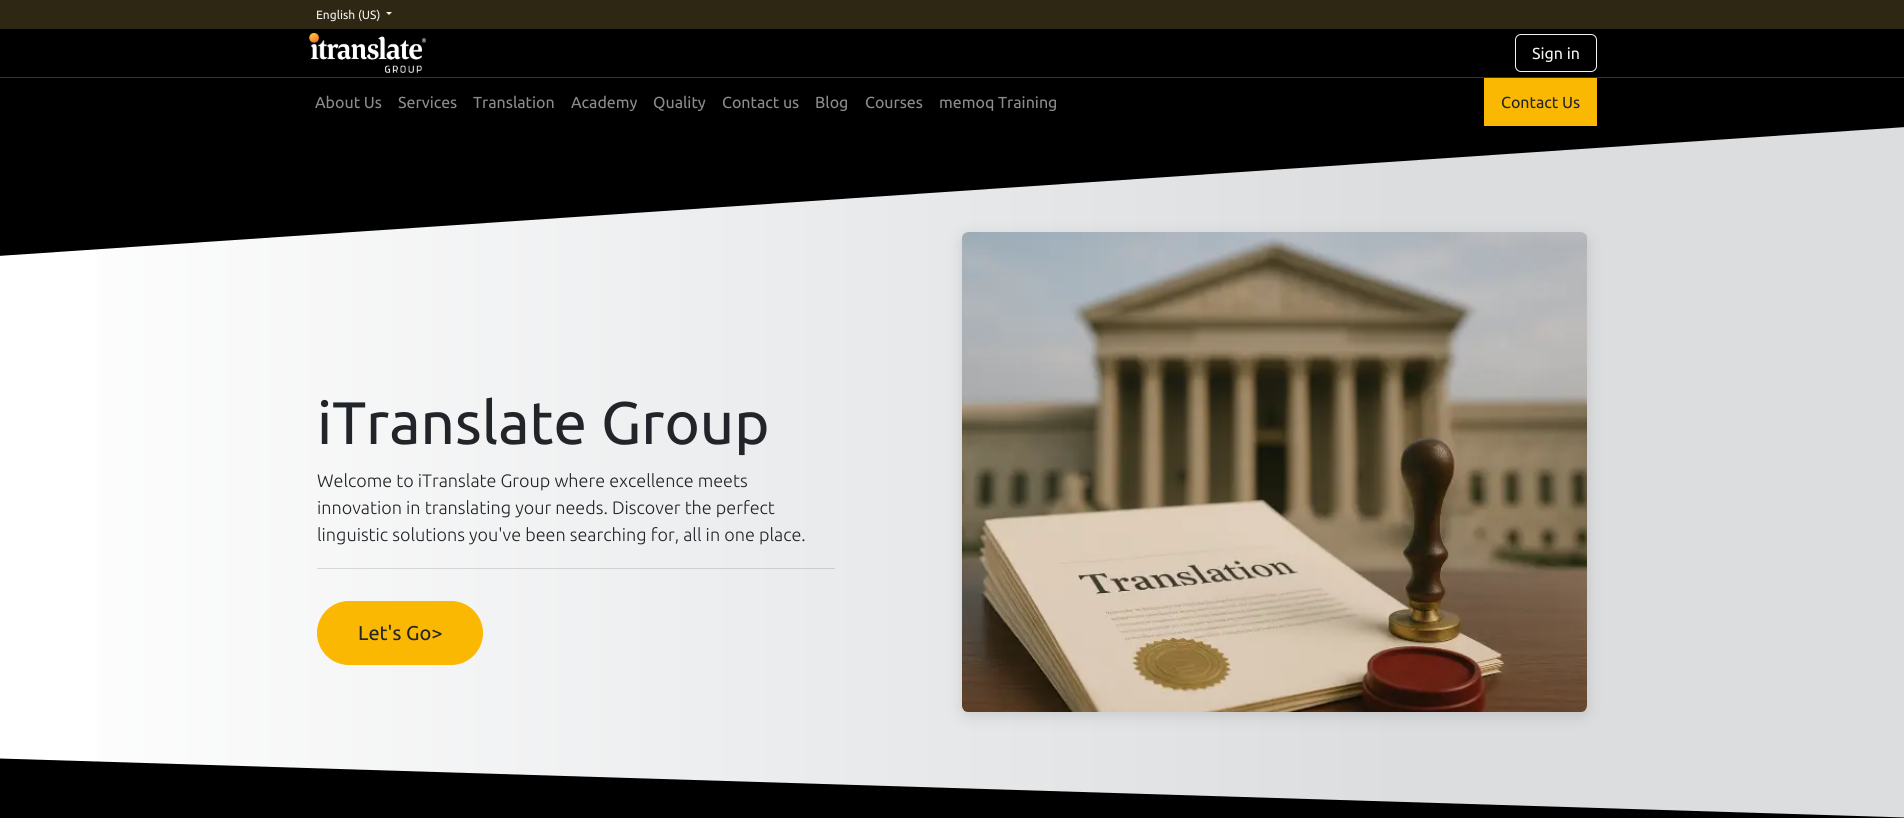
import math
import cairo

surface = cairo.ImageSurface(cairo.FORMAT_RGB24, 1904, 839)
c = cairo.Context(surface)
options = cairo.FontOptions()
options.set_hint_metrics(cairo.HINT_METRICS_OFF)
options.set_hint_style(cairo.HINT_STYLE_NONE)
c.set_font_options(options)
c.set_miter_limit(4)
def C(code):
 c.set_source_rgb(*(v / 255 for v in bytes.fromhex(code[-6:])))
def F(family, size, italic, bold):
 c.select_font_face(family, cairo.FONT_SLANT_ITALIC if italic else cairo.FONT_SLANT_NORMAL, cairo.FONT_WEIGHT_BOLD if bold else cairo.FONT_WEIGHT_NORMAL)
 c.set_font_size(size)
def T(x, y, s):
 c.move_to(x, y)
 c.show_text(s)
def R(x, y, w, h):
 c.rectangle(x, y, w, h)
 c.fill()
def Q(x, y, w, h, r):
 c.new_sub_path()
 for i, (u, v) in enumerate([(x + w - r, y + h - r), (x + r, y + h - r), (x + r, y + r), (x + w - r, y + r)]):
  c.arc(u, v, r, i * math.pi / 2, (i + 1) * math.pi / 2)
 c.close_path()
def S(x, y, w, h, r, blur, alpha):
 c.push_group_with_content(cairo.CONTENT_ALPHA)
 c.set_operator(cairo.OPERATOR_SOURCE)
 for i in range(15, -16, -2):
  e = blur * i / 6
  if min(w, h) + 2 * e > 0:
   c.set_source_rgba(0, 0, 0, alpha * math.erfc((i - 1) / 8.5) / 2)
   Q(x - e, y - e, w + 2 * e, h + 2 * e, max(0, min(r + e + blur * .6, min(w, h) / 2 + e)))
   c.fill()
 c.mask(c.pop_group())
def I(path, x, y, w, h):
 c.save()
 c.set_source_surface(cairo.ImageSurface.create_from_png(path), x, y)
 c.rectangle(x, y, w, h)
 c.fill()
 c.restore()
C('ffffff')
c.paint()
C('000000')
R(0,29,1904,97)
C('2e2714')
R(0,0,1904,29)
F('Ubuntu',12,0,0)
C('f5f4f0')
T(316,19,'English (US)')
c.new_path()
c.move_to(386,12)
c.line_to(392,12)
c.line_to(389,15)
c.close_path()
c.fill()
I('1.png',309,33,117,40)
Q(1515.5,34.5,81,37,5.5)
c.set_line_width(1)
c.stroke()
F('Ubuntu',16,0,0)
T(1532,59,'Sign in')
C('333333')
R(0,77,1904,1)
C('8c8c8c')
T(315,108,'About Us')
T(398,108,'Services')
T(473,108,'Translation')
T(571,108,'Academy')
T(653,108,'Quality')
T(722,108,'Contact us')
T(815,108,'Blog')
T(865,108,'Courses')
T(939,108,'memoq Training')
C('fab803')
R(1484,78,113,48)
C('212529')
T(1501,108,'Contact Us')
gradient = cairo.LinearGradient(0,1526,1400,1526)
gradient.add_color_stop_rgba(0,1,1,1,1)
gradient.add_color_stop_rgba(1,0.859,0.867,0.875,1)
c.set_source(gradient)
R(97,127,1807,691)
gradient = cairo.LinearGradient(0,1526,1400,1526)
gradient.add_color_stop_rgba(0,0.871,0.871,0.875,1)
gradient.add_color_stop_rgba(1,0.749,0.757,0.769,1)
c.set_source(gradient)
R(317,568,518,1)
C('000000')
c.new_path()
c.move_to(-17,126)
c.line_to(-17,257)
c.line_to(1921,126)
c.close_path()
c.fill()
c.new_path()
c.move_to(-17,818)
c.line_to(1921,818)
c.line_to(-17,758)
c.close_path()
c.fill()
F('Ubuntu',60,0,0)
C('212529')
T(317,444,'iTranslate Group')
F('Ubuntu Light',18,0,0)
T(317,487,'Welcome to iTranslate Group where excellence meets')
T(317,514,'innovation in translating your needs. Discover the perfect')
T(317,541,'linguistic solutions you\'ve been searching for, all in one place.')
C('fab803')
Q(317.5,601.5,165,63,31.5)
c.fill_preserve()
c.stroke()
F('Ubuntu',20,0,0)
C('212529')
T(358,640,'Let\'s Go>')
C('000000')
S(962,236,625,480,6,8,.12)
I('2.png',962,232,625,480)
surface.write_to_png('o.png')
